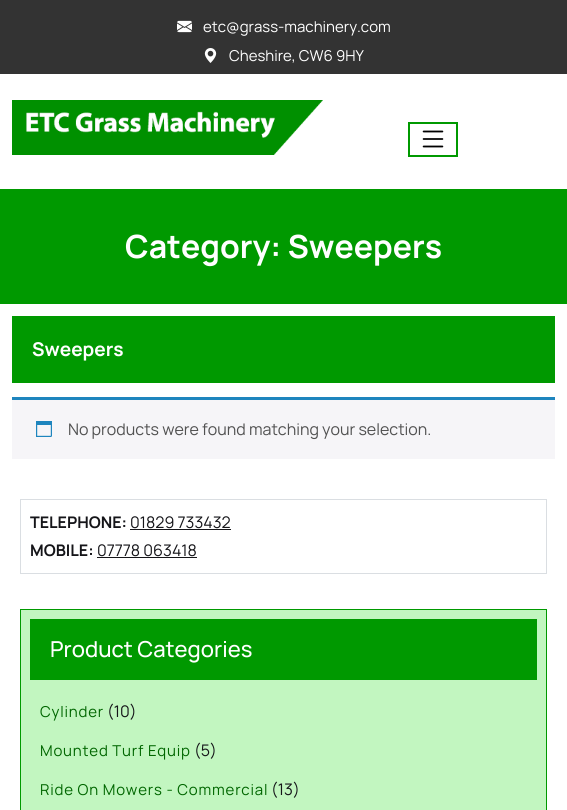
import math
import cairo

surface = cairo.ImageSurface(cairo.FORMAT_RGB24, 567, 810)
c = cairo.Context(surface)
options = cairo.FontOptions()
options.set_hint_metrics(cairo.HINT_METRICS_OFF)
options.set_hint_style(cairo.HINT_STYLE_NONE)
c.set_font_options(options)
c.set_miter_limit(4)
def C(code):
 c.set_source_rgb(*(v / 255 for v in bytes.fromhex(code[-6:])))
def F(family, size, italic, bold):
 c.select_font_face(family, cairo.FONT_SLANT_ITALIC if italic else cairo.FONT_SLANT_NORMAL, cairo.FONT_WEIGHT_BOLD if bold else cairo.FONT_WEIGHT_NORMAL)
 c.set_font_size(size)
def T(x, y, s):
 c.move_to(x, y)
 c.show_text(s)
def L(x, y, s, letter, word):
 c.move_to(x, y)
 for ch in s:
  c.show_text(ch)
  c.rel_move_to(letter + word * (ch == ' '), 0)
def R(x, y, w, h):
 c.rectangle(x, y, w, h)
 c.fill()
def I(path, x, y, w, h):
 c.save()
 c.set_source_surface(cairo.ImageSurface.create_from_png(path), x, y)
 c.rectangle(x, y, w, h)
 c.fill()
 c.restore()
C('ffffff')
c.paint()
C('333333')
R(0,0,567,74)
I('1.png',177,20,15,13)
F('Manrope',15,0,0)
C('ffffff')
T(203,32,'etc@grass-machinery.com')
I('2.png',204,48,13,15)
T(229,61,'Cheshire, CW6 9HY')
I('3.png',12,100,311,55)
c.rectangle(409,123,48,33)
C('009900')
c.stroke()
I('4.png',422,130,22,18)
R(0,189,567,115)
F('Manrope',32,0,1)
C('ffffff')
T(125,258,'Category: Sweepers')
C('009900')
R(12,316,543,67)
F('Manrope',19,0,1)
C('ffffff')
T(32,356,'Sweepers')
C('f6f5f8')
R(12,400,543,59)
C('1e85be')
R(12,397,543,3)
I('5.png',36,421,16,16)
F('Manrope',16,0,0)
C('515151')
T(68,435,'No products were found matching your selection.')
c.rectangle(20.5,499.5,526,74)
C('dadee2')
c.set_line_width(1)
c.stroke()
F('Manrope',16,0,1)
C('151519')
T(30,528,'TELEPHONE:')
F('Manrope',16,0,0)
T(130,528,'01829 733432')
R(130,529,101,1)
F('Manrope',16,0,1)
T(30,556,'MOBILE:')
F('Manrope',16,0,0)
T(97,556,'07778 063418')
R(97,557,100,1)
C('c2f6c0')
c.rectangle(20.5,609.5,526,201)
c.fill_preserve()
C('009900')
c.stroke()
R(30,619,507,61)
F('Manrope Medium',22,0,0)
C('ffffff')
T(50,657,'Product Categories')
F('Manrope',15,0,0)
C('006600')
L(40,717,'Cylinder',.8,0)
F('Manrope',16,0,0)
C('151519')
T(107,717,'(10)')
F('Manrope',15,0,0)
C('006600')
L(40,756,'Mounted Turf Equip',.8,0)
F('Manrope',16,0,0)
C('151519')
T(194,756,'(5)')
F('Manrope',15,0,0)
C('006600')
L(40,795,'Ride On Mowers - Commercial',.8,0)
F('Manrope',16,0,0)
C('151519')
T(271,795,'(13)')
surface.write_to_png('o.png')
